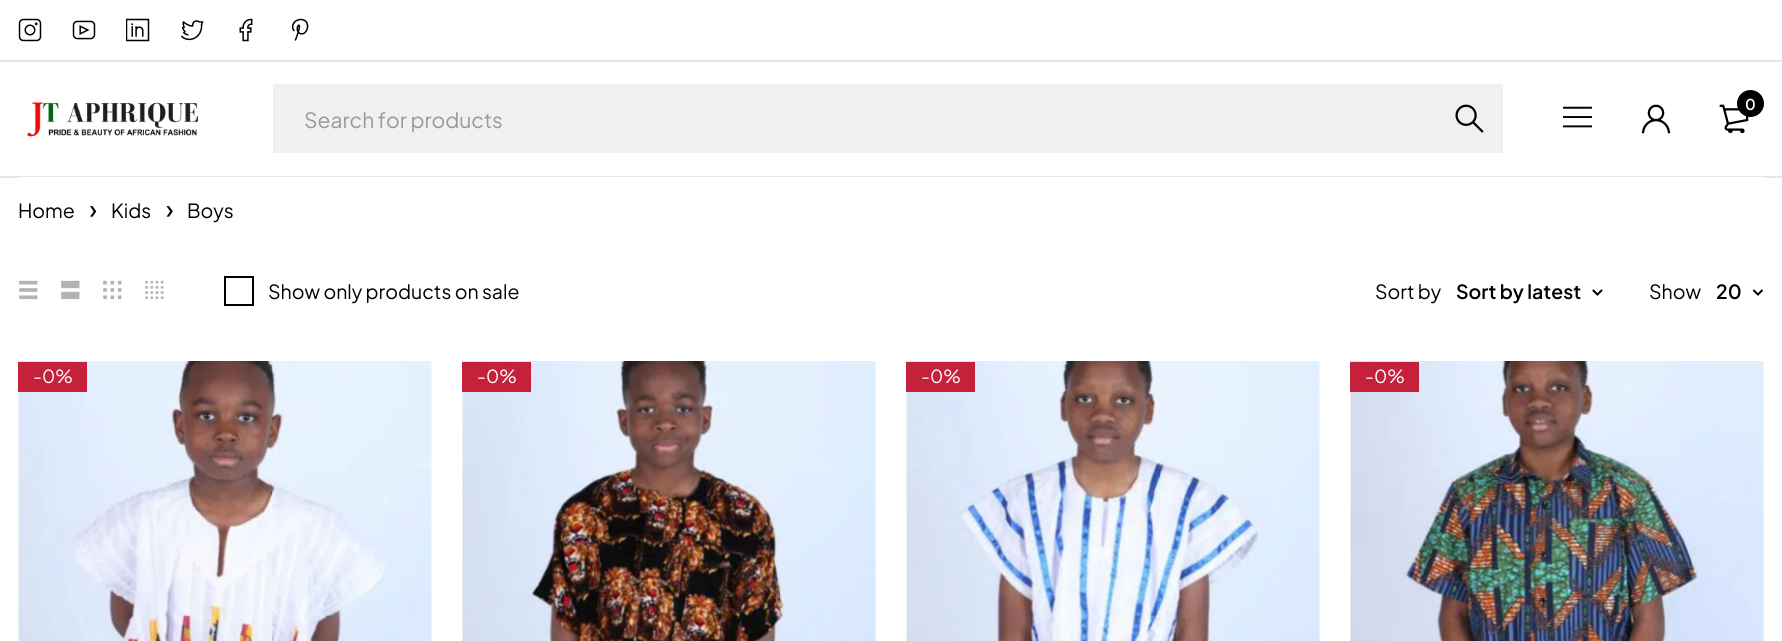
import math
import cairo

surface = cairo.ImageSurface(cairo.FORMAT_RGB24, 1782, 641)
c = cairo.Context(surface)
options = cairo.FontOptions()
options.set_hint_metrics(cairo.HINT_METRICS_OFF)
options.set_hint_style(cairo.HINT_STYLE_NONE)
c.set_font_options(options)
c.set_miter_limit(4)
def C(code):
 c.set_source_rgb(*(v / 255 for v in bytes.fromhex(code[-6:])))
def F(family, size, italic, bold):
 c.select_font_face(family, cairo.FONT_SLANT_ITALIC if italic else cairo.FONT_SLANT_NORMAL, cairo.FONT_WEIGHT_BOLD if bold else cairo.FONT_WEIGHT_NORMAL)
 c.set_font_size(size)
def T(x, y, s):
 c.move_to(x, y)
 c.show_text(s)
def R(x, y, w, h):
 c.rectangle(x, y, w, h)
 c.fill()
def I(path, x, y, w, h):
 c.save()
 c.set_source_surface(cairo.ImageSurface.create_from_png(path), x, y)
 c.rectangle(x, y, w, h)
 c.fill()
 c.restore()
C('ffffff')
c.paint()
C('e5e5e5')
R(0,60,1782,2)
I('1.png',18,18,24,24)
I('2.png',72,20,24,20)
I('3.png',126,18,24,24)
I('4.png',181,20,23,21)
I('5.png',239,18,14,24)
I('6.png',291,18,18,23)
I('7.png',27,102,171,35)
C('f0f0f0')
R(273,84,1230,69)
F('Plus Jakarta Sans',21,0,0)
C('999999')
T(304,128,'Search for products')
I('8.png',1455,104,29,29)
I('9.png',1563,106,30,22)
I('10.png',1641,104,30,30)
I('11.png',1719,104,30,30)
C('000000')
c.arc(1750.5,103.5,13.5,0,2 * math.pi)
c.fill()
F('Plus Jakarta Sans SemiBold',15,0,0)
C('ffffff')
T(1745,110,'0')
C('e5e5e5')
R(0,176,1782,2)
C('ffffff')
R(18,177,1746,1)
F('Plus Jakarta Sans',19.5,0,0)
C('000000')
T(18,218,'Home')
I('12.png',90,206,7,11)
T(111,218,'Kids')
I('13.png',166,206,7,11)
T(187,218,'Boys')
I('14.png',19,280,19,20)
I('15.png',61,280,19,20)
I('16.png',103,280,19,20)
I('17.png',145,280,19,20)
c.rectangle(225,277,28,28)
c.stroke()
T(268,299,'Show only products on sale')
T(1375,299,'Sort by')
F('Plus Jakarta Sans SemiBold',19.5,0,0)
T(1456,299,'Sort by latest')
I('18.png',1592,289,11,7)
F('Plus Jakarta Sans',19.5,0,0)
T(1649,299,'Show')
F('Plus Jakarta Sans SemiBold',19.5,0,0)
T(1716,299,'20')
I('19.png',1752,289,12,7)
I('20.png',18,361,414,280)
C('c6213b')
R(18,362,69,30)
F('Plus Jakarta Sans',18,0,0)
C('ffffff')
T(33,383,'-0%')
I('21.png',462,361,415,280)
C('c6213b')
R(462,362,69,30)
C('ffffff')
T(477,383,'-0%')
I('22.png',906,361,414,280)
C('c6213b')
R(906,362,69,30)
C('ffffff')
T(921,383,'-0%')
I('23.png',1350,361,414,280)
C('c6213b')
R(1350,362,69,30)
C('ffffff')
T(1365,383,'-0%')
surface.write_to_png('o.png')
